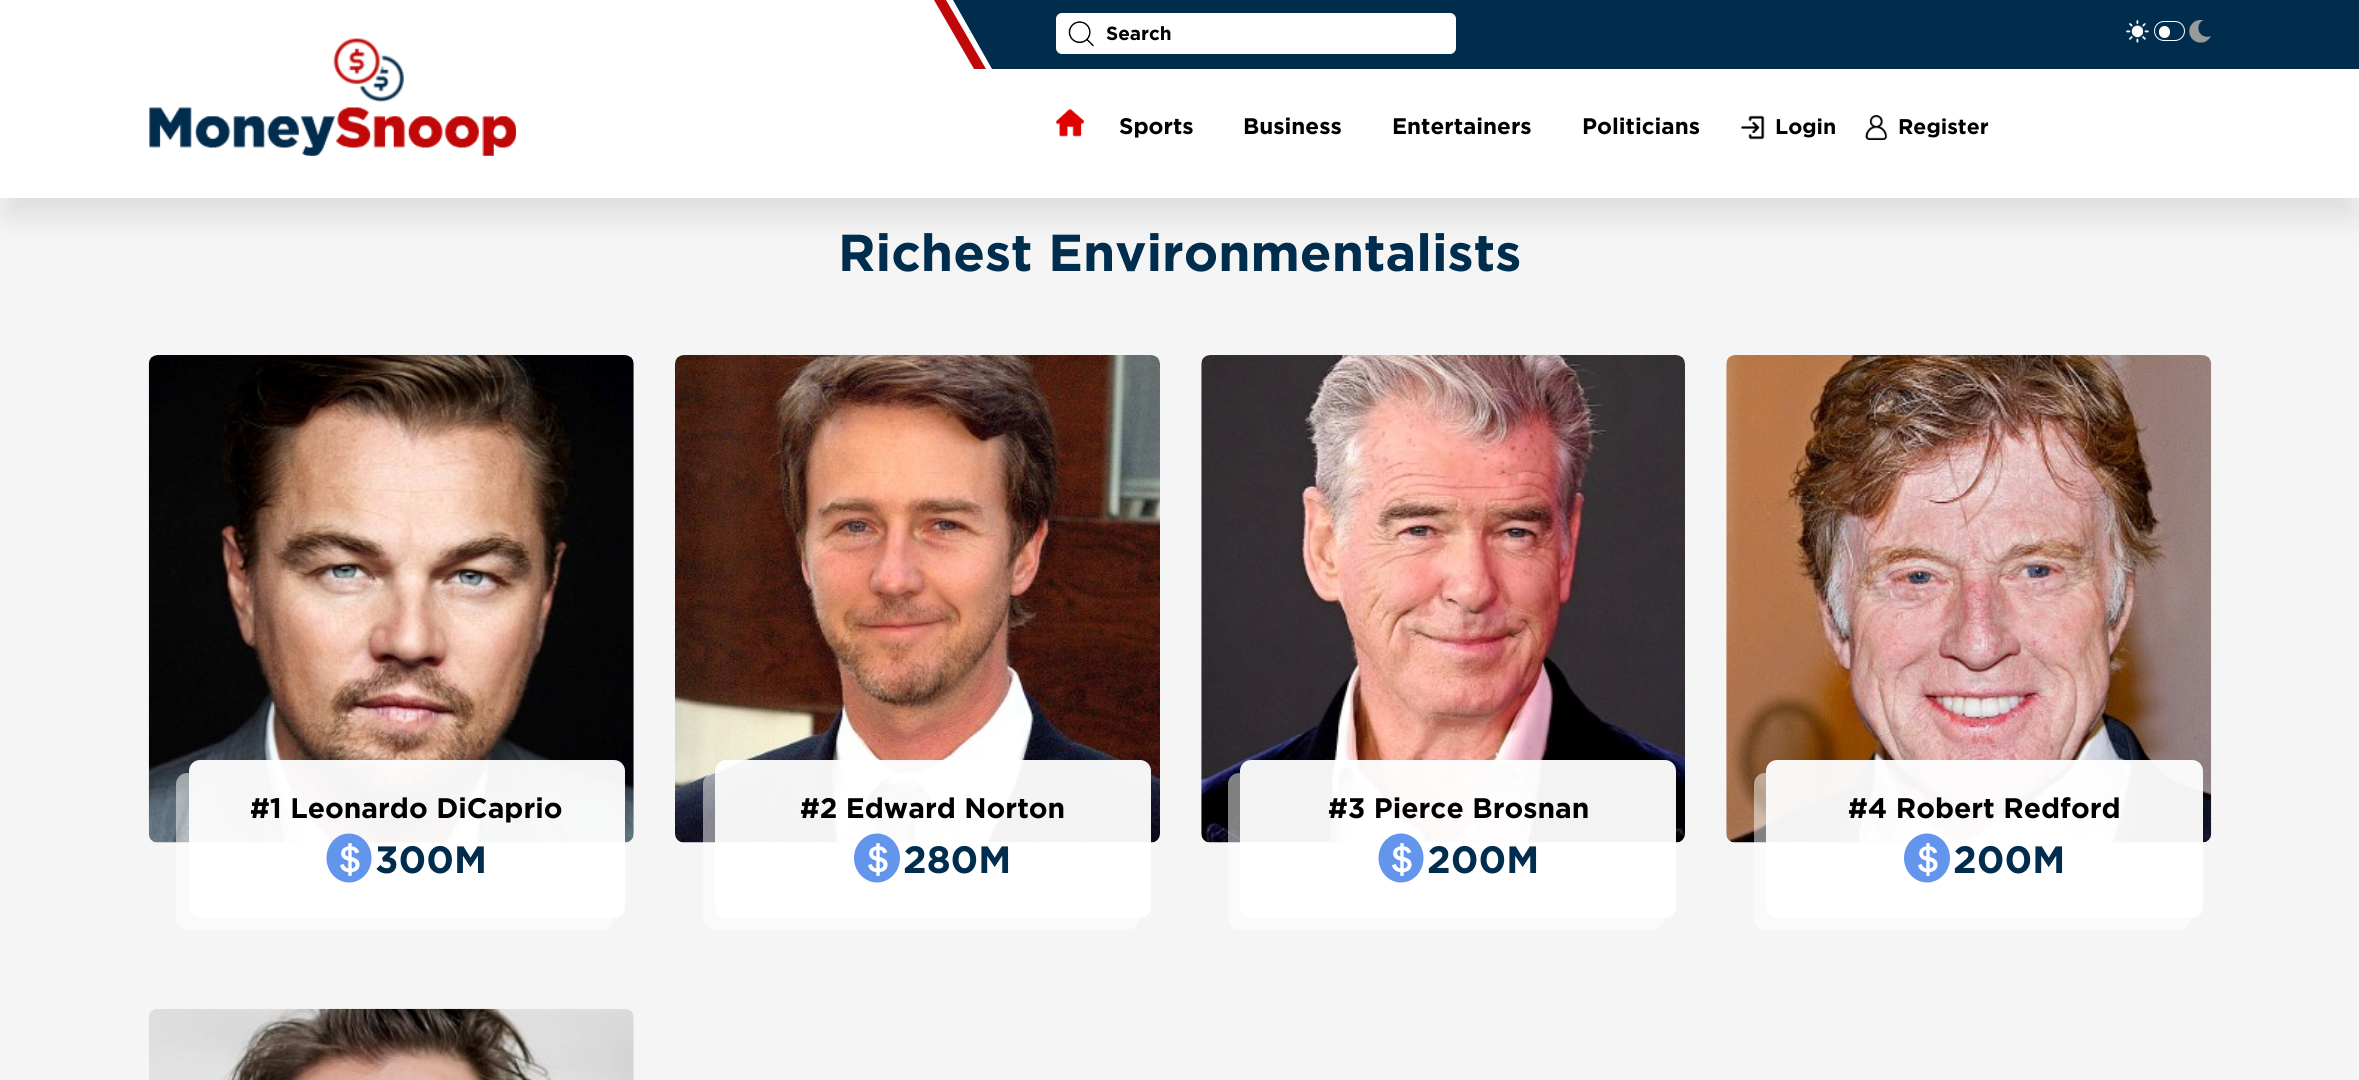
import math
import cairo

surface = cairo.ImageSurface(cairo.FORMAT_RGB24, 2359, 1080)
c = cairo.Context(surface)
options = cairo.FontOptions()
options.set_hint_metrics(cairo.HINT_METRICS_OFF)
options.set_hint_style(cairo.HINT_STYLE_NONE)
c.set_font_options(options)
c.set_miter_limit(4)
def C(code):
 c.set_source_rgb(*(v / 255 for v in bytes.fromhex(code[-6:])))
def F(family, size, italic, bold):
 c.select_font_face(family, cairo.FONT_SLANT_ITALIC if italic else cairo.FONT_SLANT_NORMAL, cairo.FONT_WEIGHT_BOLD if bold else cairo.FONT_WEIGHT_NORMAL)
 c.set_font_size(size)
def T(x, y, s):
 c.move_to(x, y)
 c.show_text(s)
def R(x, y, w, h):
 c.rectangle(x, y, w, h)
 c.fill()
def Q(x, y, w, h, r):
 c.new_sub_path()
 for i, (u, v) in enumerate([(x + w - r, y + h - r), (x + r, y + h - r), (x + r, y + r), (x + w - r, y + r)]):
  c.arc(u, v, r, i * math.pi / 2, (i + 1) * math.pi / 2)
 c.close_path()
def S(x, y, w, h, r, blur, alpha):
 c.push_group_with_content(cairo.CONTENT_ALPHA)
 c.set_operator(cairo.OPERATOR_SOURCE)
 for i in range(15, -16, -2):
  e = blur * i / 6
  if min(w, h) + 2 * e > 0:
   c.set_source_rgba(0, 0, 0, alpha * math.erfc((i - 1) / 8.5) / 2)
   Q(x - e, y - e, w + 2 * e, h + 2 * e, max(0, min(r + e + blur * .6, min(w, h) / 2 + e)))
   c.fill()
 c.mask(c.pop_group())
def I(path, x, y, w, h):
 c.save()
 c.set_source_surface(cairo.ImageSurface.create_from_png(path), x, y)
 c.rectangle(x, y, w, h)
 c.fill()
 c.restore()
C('ffffff')
c.paint()
C('002c4d')
R(1078,0,1281,69)
c.new_path()
c.move_to(953,0)
c.line_to(1078,0)
c.line_to(1117,69)
c.line_to(992,69)
c.close_path()
c.fill()
C('c00808')
c.new_path()
c.move_to(934,0)
c.line_to(946,0)
c.line_to(986,69)
c.line_to(974,69)
c.close_path()
c.fill()
C('f5f5f5')
R(0,198,2359,882)
c.save()
c.set_fill_rule(cairo.FILL_RULE_EVEN_ODD)
c.new_path()
c.move_to(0,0)
c.line_to(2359,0)
c.line_to(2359,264)
c.line_to(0,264)
c.close_path()
c.move_to(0,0)
c.line_to(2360,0)
c.line_to(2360,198)
c.line_to(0,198)
c.close_path()
c.clip()
C('000000')
S(6,31,2348,185,0,15.5,.1)
c.restore()
I('1.png',149,38,367,118)
C('ffffff')
Q(1056,13,400,41,6)
c.fill()
I('2.png',1068,21,26,26)
F('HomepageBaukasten',19,0,1)
C('000000')
T(1106,40,'Search')
I('3.png',2126,20,23,23)
Q(2154.5,21.5,30,19,9.5)
C('ffffff')
c.set_line_width(1)
c.stroke()
Q(2159,26,11,12,5.5)
c.fill()
I('4.png',2188,20,23,23)
I('5.png',1056,108,28,29)
F('HomepageBaukasten',22.5,0,1)
C('000000')
T(1119,134,'Sports')
T(1243,134,'Business')
T(1392,134,'Entertainers')
T(1582,134,'Politicians')
I('6.png',1740,115,25,25)
F('HomepageBaukasten',21.25,0,1)
T(1775,134,'Login')
I('7.png',1865,115,23,25)
T(1898,134,'Register')
F('HomepageBaukasten',51.9,0,1)
C('002c4d')
T(838,271,'Richest Environmentalists')
I('8.png',148,355,486,488)
c.set_source_rgba(1,1,1,0.5)
c.new_path()
c.move_to(187,773)
c.curve_to(181,773,176,778,176,784)
c.line_to(176,919)
c.curve_to(176,925,181,930,187,930)
c.line_to(602,930)
c.curve_to(608,930,613,925,613,919)
c.line_to(613,918)
c.line_to(200,918)
c.curve_to(194,918,189,912,189,906)
c.line_to(189,773)
c.close_path()
c.fill()
c.set_source_rgba(1,1,1,0.95)
Q(189,760,436,158,11)
c.fill()
F('HomepageBaukasten',28.25,0,1)
C('000000')
T(250,818,'#1 Leonardo DiCaprio')
C('6495ed')
c.new_path()
c.move_to(349,833.5)
c.curve_to(361.5,833.5,371.5,844.5,371.5,858)
c.curve_to(371.5,871.5,361.5,882.5,349,882.5)
c.curve_to(336.5,882.5,326.5,871.5,326.5,858)
c.curve_to(326.5,844.5,336.5,833.5,349,833.5)
c.close_path()
c.fill()
F('WenQuanYi Zen Hei',38,0,1)
C('ffffff')
T(330,873,'＄')
F('HomepageBaukasten',38,0,1)
C('002c4d')
T(375,873,'300M')
I('9.png',675,355,485,488)
c.set_source_rgba(1,1,1,0.5)
c.new_path()
c.move_to(714,773)
c.curve_to(708,773,703,778,703,784)
c.line_to(703,919)
c.curve_to(703,925,708,930,714,930)
c.line_to(1128,930)
c.curve_to(1134,930,1139,925,1139,919)
c.line_to(1139,918)
c.line_to(726,918)
c.curve_to(720,918,715,912,715,906)
c.line_to(715,773)
c.close_path()
c.fill()
c.set_source_rgba(1,1,1,0.95)
Q(715,760,436,158,11)
c.fill()
F('HomepageBaukasten',28.25,0,1)
C('000000')
T(800,818,'#2 Edward Norton')
C('6495ed')
c.new_path()
c.move_to(877,833.5)
c.curve_to(889.5,833.5,900,844.5,900,858)
c.curve_to(900,871.5,889.5,882.5,877,882.5)
c.curve_to(864.5,882.5,854,871.5,854,858)
c.curve_to(854,844.5,864.5,833.5,877,833.5)
c.close_path()
c.fill()
F('WenQuanYi Zen Hei',38,0,1)
C('ffffff')
T(858,873,'＄')
F('HomepageBaukasten',38,0,1)
C('002c4d')
T(903,873,'280M')
I('10.png',1201,355,484,488)
c.set_source_rgba(1,1,1,0.5)
c.new_path()
c.move_to(1239,773)
c.curve_to(1233,773,1228,778,1228,784)
c.line_to(1228,919)
c.curve_to(1228,925,1233,930,1239,930)
c.line_to(1653,930)
c.curve_to(1659,930,1664,925,1664,919)
c.line_to(1664,918)
c.line_to(1251,918)
c.curve_to(1245,918,1240,912,1240,906)
c.line_to(1240,773)
c.close_path()
c.fill()
c.set_source_rgba(1,1,1,0.95)
Q(1240,760,436,158,11)
c.fill()
F('HomepageBaukasten',28.25,0,1)
C('000000')
T(1328,818,'#3 Pierce Brosnan')
C('6495ed')
c.new_path()
c.move_to(1401,833.5)
c.curve_to(1413.5,833.5,1423.5,844.5,1423.5,858)
c.curve_to(1423.5,871.5,1413.5,882.5,1401,882.5)
c.curve_to(1388.5,882.5,1378.5,871.5,1378.5,858)
c.curve_to(1378.5,844.5,1388.5,833.5,1401,833.5)
c.close_path()
c.fill()
F('WenQuanYi Zen Hei',38,0,1)
C('ffffff')
T(1382,873,'＄')
F('HomepageBaukasten',38,0,1)
C('002c4d')
T(1427,873,'200M')
I('11.png',1726,355,486,488)
c.set_source_rgba(1,1,1,0.5)
c.new_path()
c.move_to(1765,773)
c.curve_to(1759,773,1754,778,1754,784)
c.line_to(1754,919)
c.curve_to(1754,925,1759,930,1765,930)
c.line_to(2179,930)
c.curve_to(2185,930,2190,925,2190,919)
c.line_to(2190,918)
c.line_to(1778,918)
c.curve_to(1771,918,1766,912,1766,906)
c.line_to(1766,773)
c.close_path()
c.fill()
c.set_source_rgba(1,1,1,0.95)
Q(1766,760,437,158,11)
c.fill()
F('HomepageBaukasten',28.25,0,1)
C('000000')
T(1848,818,'#4 Robert Redford')
C('6495ed')
c.new_path()
c.move_to(1927,833.5)
c.curve_to(1939.5,833.5,1950,844.5,1950,858)
c.curve_to(1950,871.5,1939.5,882.5,1927,882.5)
c.curve_to(1914.5,882.5,1904,871.5,1904,858)
c.curve_to(1904,844.5,1914.5,833.5,1927,833.5)
c.close_path()
c.fill()
F('WenQuanYi Zen Hei',38,0,1)
C('ffffff')
T(1908,873,'＄')
F('HomepageBaukasten',38,0,1)
C('002c4d')
T(1953,873,'200M')
I('12.png',149,1008,485,72)
surface.write_to_png('o.png')
